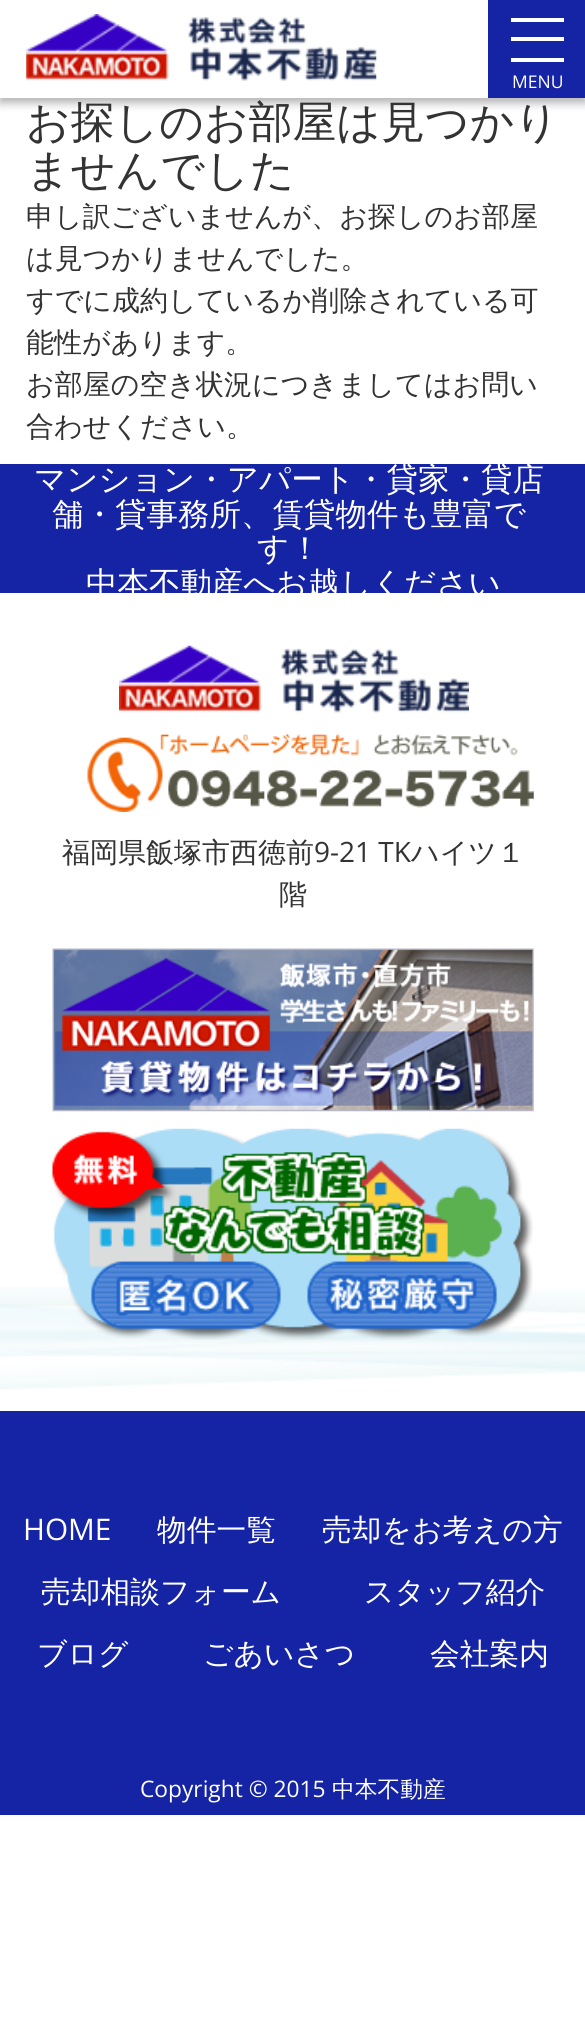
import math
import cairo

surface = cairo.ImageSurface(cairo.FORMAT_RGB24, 585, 2025)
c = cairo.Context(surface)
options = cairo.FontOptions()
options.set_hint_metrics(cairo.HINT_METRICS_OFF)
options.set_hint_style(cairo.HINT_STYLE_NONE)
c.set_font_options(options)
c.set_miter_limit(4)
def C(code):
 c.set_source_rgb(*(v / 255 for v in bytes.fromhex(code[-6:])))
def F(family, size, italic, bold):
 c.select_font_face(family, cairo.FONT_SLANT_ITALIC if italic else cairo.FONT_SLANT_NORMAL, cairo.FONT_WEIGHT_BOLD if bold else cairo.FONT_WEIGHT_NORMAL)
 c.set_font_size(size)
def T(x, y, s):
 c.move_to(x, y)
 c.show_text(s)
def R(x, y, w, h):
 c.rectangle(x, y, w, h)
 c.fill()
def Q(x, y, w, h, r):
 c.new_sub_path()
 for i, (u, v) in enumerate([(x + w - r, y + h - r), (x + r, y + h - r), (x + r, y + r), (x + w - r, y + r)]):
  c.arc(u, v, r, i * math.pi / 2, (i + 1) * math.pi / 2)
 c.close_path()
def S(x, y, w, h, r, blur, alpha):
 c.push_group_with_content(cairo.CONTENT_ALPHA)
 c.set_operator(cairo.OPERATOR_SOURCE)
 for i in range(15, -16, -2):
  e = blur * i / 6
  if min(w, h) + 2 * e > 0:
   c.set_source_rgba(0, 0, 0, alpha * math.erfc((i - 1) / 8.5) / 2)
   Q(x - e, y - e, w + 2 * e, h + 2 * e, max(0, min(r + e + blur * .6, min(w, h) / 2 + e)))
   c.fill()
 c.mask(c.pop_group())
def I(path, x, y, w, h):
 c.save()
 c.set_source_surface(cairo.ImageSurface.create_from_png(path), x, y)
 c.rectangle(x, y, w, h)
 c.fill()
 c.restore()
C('ffffff')
c.paint()
C('000000')
S(0,5,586,98,0,4.5,.3)
C('ffffff')
R(0,0,488,98)
I('1.png',26,14,351,67)
C('1523a5')
R(488,0,97,98)
C('ffffff')
R(511,18,53,4)
R(511,37,53,4)
R(511,58,53,4)
F('Open Sans',17.5,0,0)
T(512,88,'MENU')
F('WenQuanYi Zen Hei Medium',43.75,0,0)
C('333333')
T(26,137,'お探しのお部屋は見つかり')
T(26,185,'ませんでした')
F('WenQuanYi Zen Hei Medium',28,0,0)
T(26,226,'申し訳ございませんが、お探しのお部屋')
T(26,268,'は見つかりませんでした。')
T(26,310,'すでに成約しているか削除されている可')
T(26,352,'能性があります。')
T(26,394,'お部屋の空き状況につきましてはお問い')
T(26,436,'合わせください。')
C('1523a5')
R(0,464,585,129)
F('WenQuanYi Zen Hei Medium',31.5,0,0)
C('ffffff')
T(34,490,'マンション・アパート・貸家・貸店')
T(52,525,'舗・貸事務所、賃貸物件も豊富で')
T(257,559,'す！')
T(86,594,'中本不動産へお越しください')
I('2.png',0,1287,585,103)
I('3.png',119,645,350,68)
I('4.png',87,733,447,79)
F('WenQuanYi Zen Hei Medium',28,0,0)
C('333333')
T(62,862,'福岡県飯塚市西徳前')
F('Open Sans',28,0,0)
T(314,862,'9-21 TK')
F('WenQuanYi Zen Hei Medium',28,0,0)
T(411,862,'ハイツ１')
T(279,904,'階')
I('5.png',52,948,482,164)
I('6.png',52,1128,481,212)
C('1523a5')
R(0,1411,585,404)
F('Open Sans',29.75,0,0)
C('ffffff')
T(23,1540,'HOME')
F('WenQuanYi Zen Hei Medium',29.75,0,0)
T(157,1540,'物件一覧')
T(322,1540,'売却をお考えの方')
T(41,1602,'売却相談フォーム')
T(364,1602,'スタッフ紹介')
T(37,1664,'ブログ')
T(203,1664,'ごあいさつ')
T(430,1664,'会社案内')
F('Open Sans',22.75,0,0)
T(140,1797,'Copyright © 2015')
F('WenQuanYi Zen Hei Medium',22.75,0,0)
T(332,1797,'中本不動産')
surface.write_to_png('o.png')
